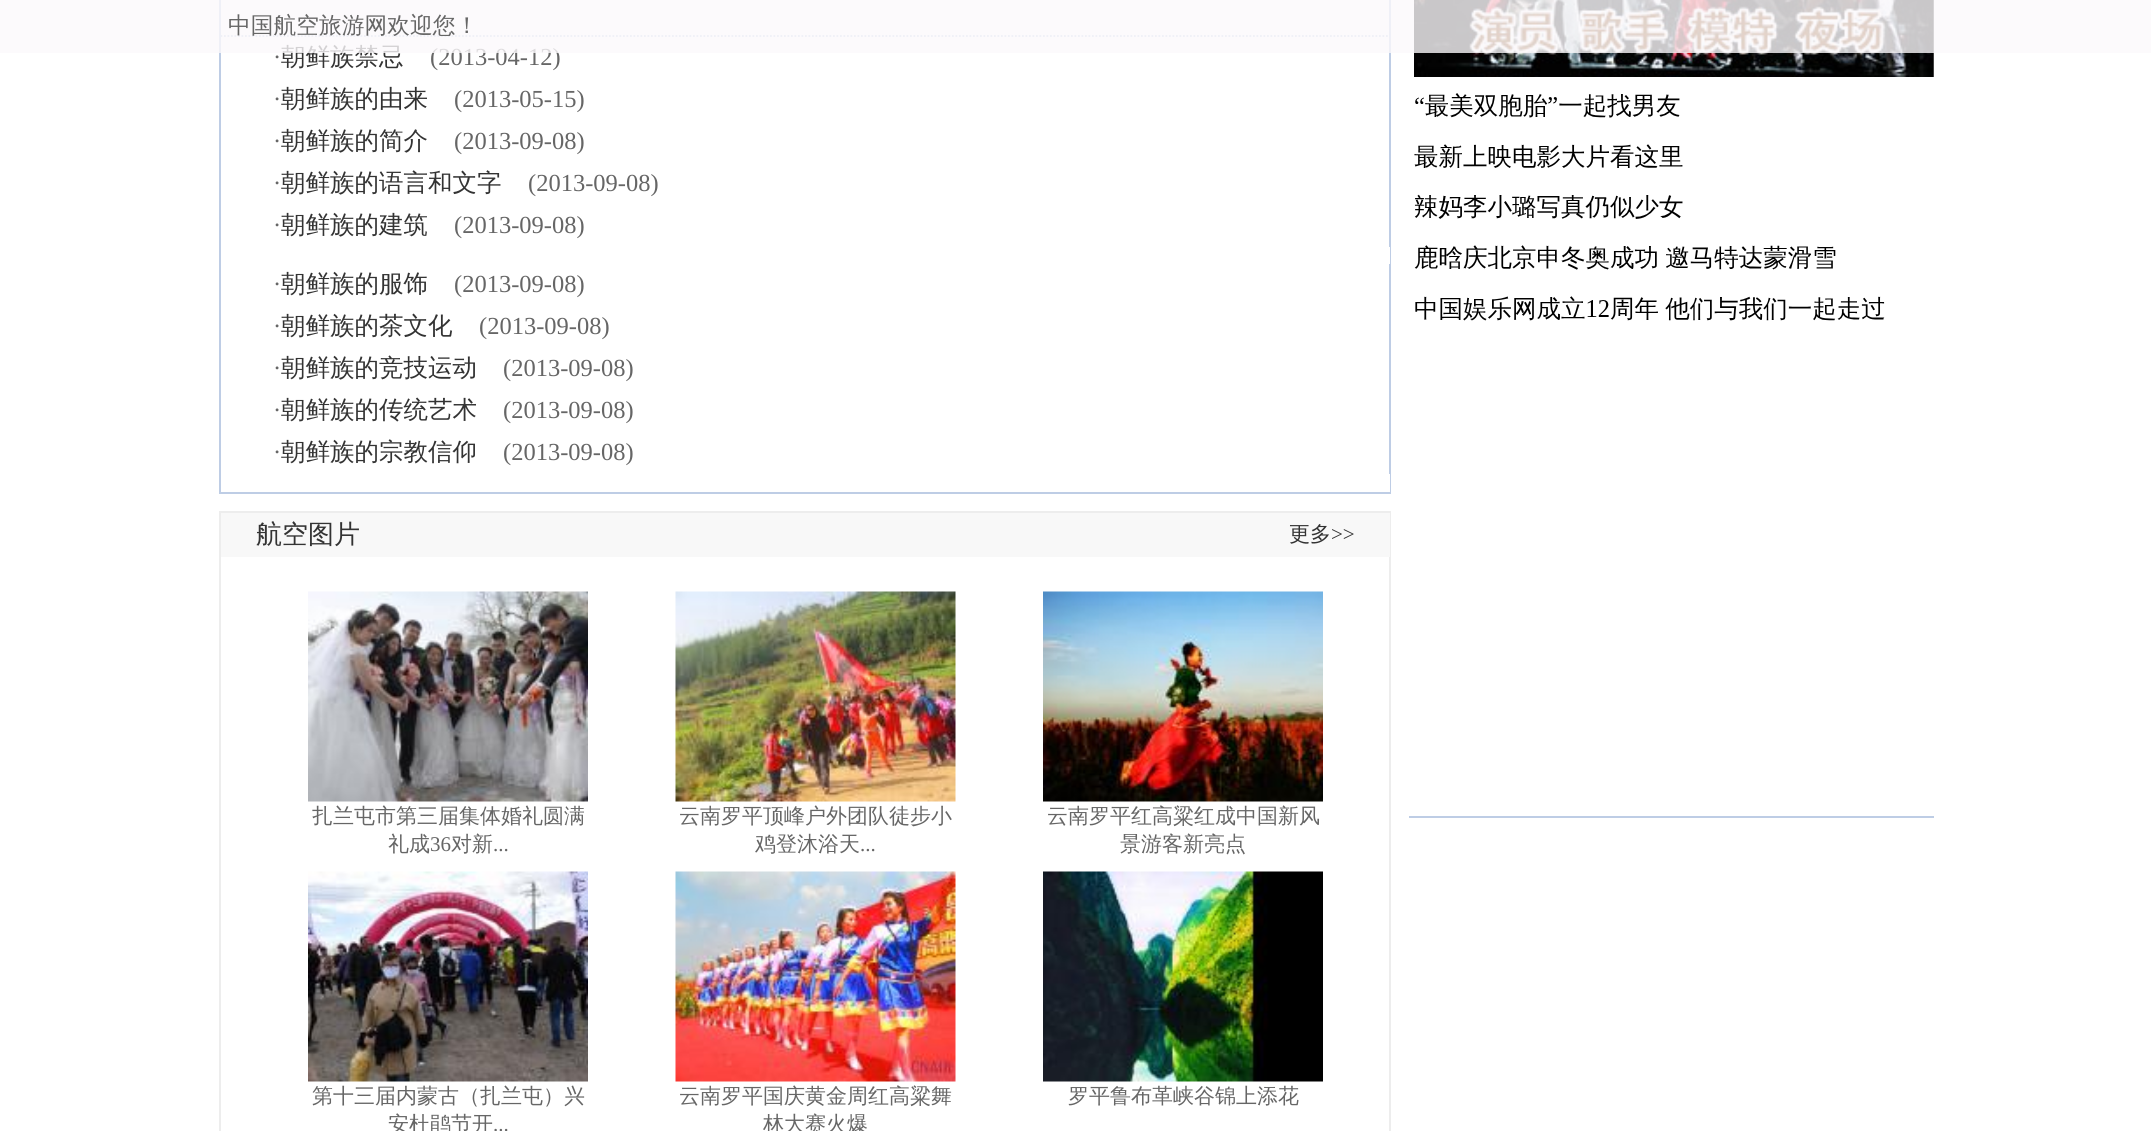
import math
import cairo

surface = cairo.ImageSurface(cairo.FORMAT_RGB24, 2151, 1131)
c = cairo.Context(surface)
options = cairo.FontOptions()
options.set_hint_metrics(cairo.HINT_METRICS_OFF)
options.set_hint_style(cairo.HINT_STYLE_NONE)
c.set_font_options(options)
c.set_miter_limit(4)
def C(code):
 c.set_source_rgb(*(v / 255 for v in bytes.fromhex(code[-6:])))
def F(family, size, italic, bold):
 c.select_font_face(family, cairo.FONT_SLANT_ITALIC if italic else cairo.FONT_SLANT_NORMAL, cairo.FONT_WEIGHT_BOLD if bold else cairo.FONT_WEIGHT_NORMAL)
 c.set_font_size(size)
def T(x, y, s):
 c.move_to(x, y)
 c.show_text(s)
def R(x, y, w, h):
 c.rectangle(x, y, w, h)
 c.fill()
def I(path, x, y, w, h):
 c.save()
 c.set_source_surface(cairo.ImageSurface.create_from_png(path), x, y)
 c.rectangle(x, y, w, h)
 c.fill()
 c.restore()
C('ffffff')
c.paint()
c.rectangle(220,-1,1170,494)
C('becde5')
c.stroke()
c.new_path()
c.move_to(220.5,36)
c.line_to(1389.5,36)
c.set_line_width(1.8)
c.set_dash([1.75,1.75])
c.stroke()
F('WenQuanYi Zen Hei Medium',24.5,0,0)
C('333333')
T(281,65,'朝鲜族禁忌')
F('Liberation Serif',24.5,0,0)
C('666666')
T(430,65,'(2013-04-12)')
I('7.png',1414,0,520,321)
c.set_source_rgba(0.984,0.976,0.984,0.8)
R(0,0,2151,53)
F('WenQuanYi Zen Hei Medium',22.75,0,0)
C('666666')
T(228,33,'中国航空旅游网欢迎您！')
F('Liberation Serif',24.5,0,0)
T(273,65,'·')
T(273,107,'·')
F('WenQuanYi Zen Hei Medium',24.5,0,0)
C('333333')
T(281,107,'朝鲜族的由来')
F('Liberation Serif',24.5,0,0)
C('666666')
T(454,107,'(2013-05-15)')
T(273,149,'·')
F('WenQuanYi Zen Hei Medium',24.5,0,0)
C('333333')
T(281,149,'朝鲜族的简介')
F('Liberation Serif',24.5,0,0)
C('666666')
T(454,149,'(2013-09-08)')
T(273,191,'·')
F('WenQuanYi Zen Hei Medium',24.5,0,0)
C('333333')
T(281,191,'朝鲜族的语言和文字')
F('Liberation Serif',24.5,0,0)
C('666666')
T(528,191,'(2013-09-08)')
T(273,233,'·')
F('WenQuanYi Zen Hei Medium',24.5,0,0)
C('333333')
T(281,233,'朝鲜族的建筑')
F('Liberation Serif',24.5,0,0)
C('666666')
T(454,233,'(2013-09-08)')
C('ffffff')
R(1389,247,1,17)
C('666666')
T(273,292,'·')
F('WenQuanYi Zen Hei Medium',24.5,0,0)
C('333333')
T(281,292,'朝鲜族的服饰')
F('Liberation Serif',24.5,0,0)
C('666666')
T(454,292,'(2013-09-08)')
T(273,334,'·')
F('WenQuanYi Zen Hei Medium',24.5,0,0)
C('333333')
T(281,334,'朝鲜族的茶文化')
F('Liberation Serif',24.5,0,0)
C('666666')
T(479,334,'(2013-09-08)')
T(273,376,'·')
F('WenQuanYi Zen Hei Medium',24.5,0,0)
C('333333')
T(281,376,'朝鲜族的竞技运动')
F('Liberation Serif',24.5,0,0)
C('666666')
T(503,376,'(2013-09-08)')
T(273,418,'·')
F('WenQuanYi Zen Hei Medium',24.5,0,0)
C('333333')
T(281,418,'朝鲜族的传统艺术')
F('Liberation Serif',24.5,0,0)
C('666666')
T(503,418,'(2013-09-08)')
T(273,460,'·')
F('WenQuanYi Zen Hei Medium',24.5,0,0)
C('333333')
T(281,460,'朝鲜族的宗教信仰')
F('Liberation Serif',24.5,0,0)
C('666666')
T(503,460,'(2013-09-08)')
C('ffffff')
R(1389,474,1,18)
c.rectangle(220,512,1170,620)
C('ededed')
c.set_line_width(2)
c.set_dash([])
c.stroke()
C('f8f8f8')
R(221,513,1169,44)
F('WenQuanYi Zen Hei Medium',26,0,0)
C('333333')
T(256,543,'航空图片')
F('WenQuanYi Zen Hei Medium',21,0,0)
T(1289,541,'更多')
F('Liberation Serif',21,0,0)
T(1331,541,'>>')
I('1.png',308,591,280,211)
F('WenQuanYi Zen Hei Medium',21,0,0)
C('666666')
T(312,823,'扎兰屯市第三届集体婚礼圆满')
T(388,851,'礼成')
F('Liberation Serif',21,0,0)
T(430,851,'36')
F('WenQuanYi Zen Hei Medium',21,0,0)
T(451,851,'对新')
F('Liberation Serif',21,0,0)
T(493,851,'...')
I('2.png',308,871,280,211)
F('WenQuanYi Zen Hei Medium',21,0,0)
T(312,1103,'第十三届内蒙古（扎兰屯）兴')
T(388,1131,'安杜鹃节开')
F('Liberation Serif',21,0,0)
T(493,1131,'...')
I('3.png',675,591,281,211)
F('WenQuanYi Zen Hei Medium',21,0,0)
T(679,823,'云南罗平顶峰户外团队徒步小')
T(755,851,'鸡登沐浴天')
F('Liberation Serif',21,0,0)
T(860,851,'...')
I('4.png',675,871,281,211)
F('WenQuanYi Zen Hei Medium',21,0,0)
T(679,1103,'云南罗平国庆黄金周红高粱舞')
T(763,1131,'林大赛火爆')
I('5.png',1043,591,280,211)
T(1047,823,'云南罗平红高粱红成中国新风')
T(1120,851,'景游客新亮点')
I('6.png',1043,871,280,211)
T(1068,1103,'罗平鲁布革峡谷锦上添花')
C('becde5')
R(1409,816,525,2)
surface.write_to_png('o.png')
